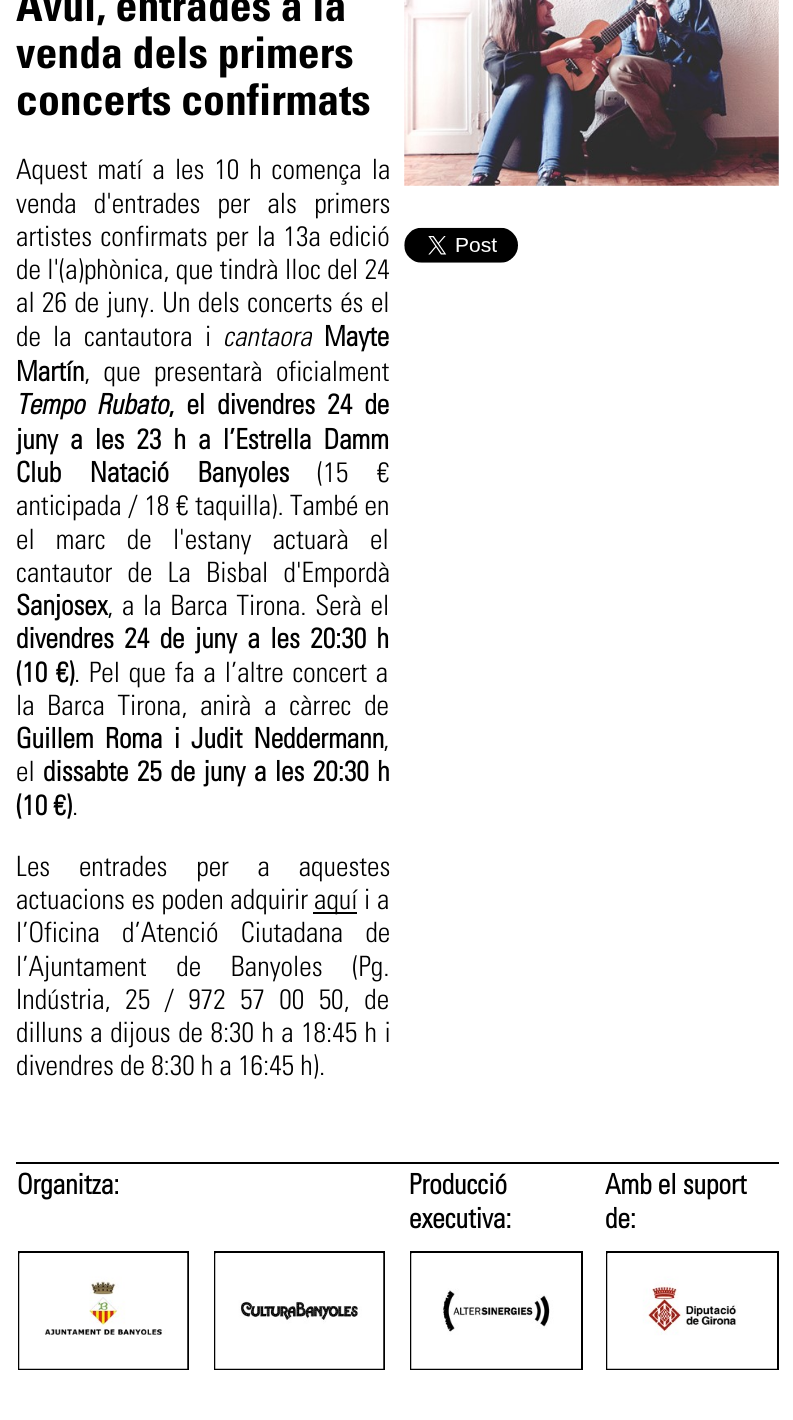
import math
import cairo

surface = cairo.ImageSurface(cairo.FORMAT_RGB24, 793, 1420)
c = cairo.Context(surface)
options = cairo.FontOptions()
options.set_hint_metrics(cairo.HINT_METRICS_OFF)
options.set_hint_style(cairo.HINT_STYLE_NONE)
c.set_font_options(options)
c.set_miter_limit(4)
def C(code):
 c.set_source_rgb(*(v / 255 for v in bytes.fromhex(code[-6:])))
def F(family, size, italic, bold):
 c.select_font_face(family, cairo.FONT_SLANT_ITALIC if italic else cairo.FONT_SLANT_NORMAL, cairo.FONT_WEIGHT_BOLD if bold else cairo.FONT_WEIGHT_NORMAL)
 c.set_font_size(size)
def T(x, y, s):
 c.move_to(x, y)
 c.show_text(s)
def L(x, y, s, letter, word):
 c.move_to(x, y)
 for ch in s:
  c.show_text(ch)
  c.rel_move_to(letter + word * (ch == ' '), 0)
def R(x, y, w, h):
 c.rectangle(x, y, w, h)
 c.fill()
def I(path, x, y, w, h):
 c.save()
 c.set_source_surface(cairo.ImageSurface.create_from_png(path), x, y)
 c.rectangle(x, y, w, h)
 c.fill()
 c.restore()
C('ffffff')
c.paint()
F('Univers',43.75,0,1)
C('000000')
T(16,21,'Avui, entrades a la')
T(16,68,'venda dels primers')
T(16,115,'concerts confirmats')
F('Univers Light',28,0,0)
L(16,179,'Aquest matí a les 10 h comença la',0,3.75)
L(16,213,'venda d\'entrades per als primers',0,11)
L(16,246,'artistes confirmats per la 13a edició',0,2)
L(16,279,'de l\'(a)phònica, que tindrà lloc del 24',0,.25)
L(16,312,'al 26 de juny. Un dels concerts és el',0,1.25)
L(16,346,'de la cantautora i',0,6)
F('Univers Light',28,1,0)
T(223,346,'cantaora')
F('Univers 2',28,0,1)
T(324,346,'Mayte')
T(16,381,'Martín')
F('Univers Light',28,0,0)
L(84,381,', que presentarà oficialment',0,7)
F('Univers',28,1,1)
L(16,414,'Tempo Rubato',0,6)
F('Univers 2',28,0,1)
L(168,414,', el divendres 24 de',0,6)
L(16,449,'juny a les 23 h a l’Estrella Damm',0,6)
L(16,482,'Club Natació Banyoles',0,22.5)
F('Univers Light',28,0,0)
L(317,482,'(15 €',0,22.5)
L(16,515,'anticipada / 18 € taquilla).',0,.5)
T(290,515,'També en')
L(16,549,'el marc de l\'estany actuarà el',0,15)
L(16,582,'cantautor de La Bisbal d\'Empordà',0,9)
F('Univers 2',28,0,1)
T(16,615,'Sanjosex')
F('Univers Light',28,0,0)
L(107,615,', a la Barca Tirona. Serà el',0,2.5)
F('Univers 2',28,0,1)
L(16,648,'divendres 24 de juny a les 20:30 h',0,4.25)
L(16,682,'(10 €)',0,2.5)
F('Univers Light',28,0,0)
L(74,682,'. Pel que fa a l’altre concert a',0,2.5)
L(16,715,'la Barca Tirona, anirà a càrrec de',0,6.5)
F('Univers 2',28,0,1)
L(16,748,'Guillem Roma i Judit Neddermann',0,5)
F('Univers Light',28,0,0)
T(383,748,',')
T(16,781,'el')
F('Univers 2',28,0,1)
L(43,781,'dissabte 25 de juny a les 20:30 h',0,2.25)
T(16,815,'(10 €)')
F('Univers Light',28,0,0)
T(72,815,'.')
L(16,876,'Les entrades per a aquestes',0,22.5)
L(16,909,'actuacions es poden adquirir',0,.5)
R(313,912,44,2)
T(314,909,'aquí')
L(364,909,'i a',0,.5)
L(16,942,'l’Oficina d’Atenció Ciutadana de',0,16)
L(16,976,'l’Ajuntament de Banyoles (Pg.',0,23.5)
L(16,1009,'Indústria, 25 / 972 57 00 50, de',0,8.25)
L(16,1042,'dilluns a dijous de 8:30 h a 18:45 h i',0,1.25)
T(16,1075,'divendres de 8:30 h a 16:45 h).')
I('1.png',404,0,375,186)
I('2.png',404,227,114,36)
R(16,1162,763,2)
F('Univers 2',28,0,1)
T(17,1194,'Organitza:')
c.rectangle(19,1252,169,117)
c.stroke()
I('3.png',19,1253,169,116)
T(409,1194,'Producció')
T(409,1228,'executiva:')
c.rectangle(411,1252,171,117)
c.stroke()
I('4.png',411,1253,170,116)
T(605,1194,'Amb el suport')
T(605,1228,'de:')
c.rectangle(607,1252,171,117)
c.stroke()
I('5.png',607,1253,170,116)
c.rectangle(215,1252,169,117)
c.stroke()
I('6.png',215,1253,169,116)
surface.write_to_png('o.png')
